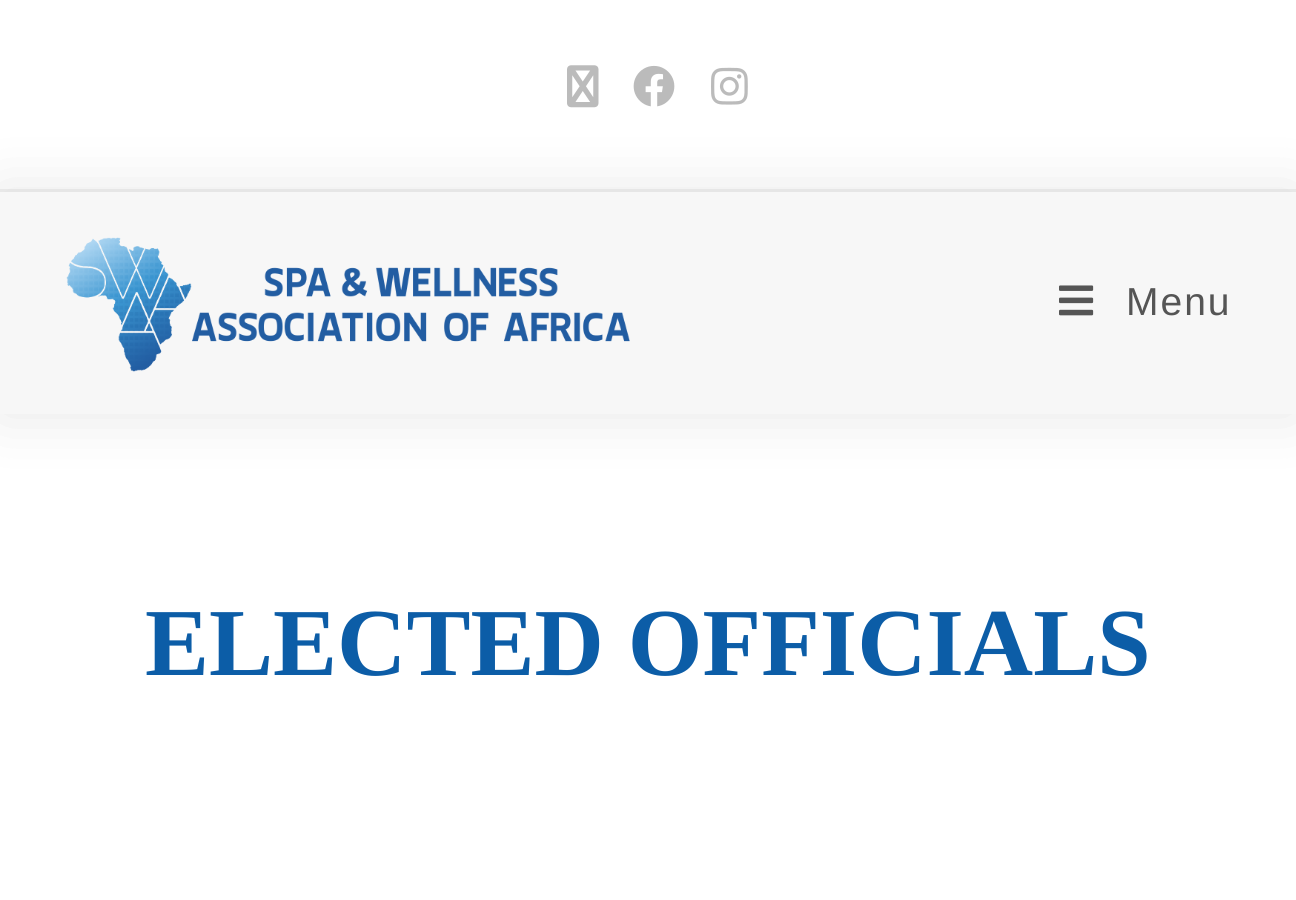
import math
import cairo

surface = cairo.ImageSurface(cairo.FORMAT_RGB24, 1296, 900)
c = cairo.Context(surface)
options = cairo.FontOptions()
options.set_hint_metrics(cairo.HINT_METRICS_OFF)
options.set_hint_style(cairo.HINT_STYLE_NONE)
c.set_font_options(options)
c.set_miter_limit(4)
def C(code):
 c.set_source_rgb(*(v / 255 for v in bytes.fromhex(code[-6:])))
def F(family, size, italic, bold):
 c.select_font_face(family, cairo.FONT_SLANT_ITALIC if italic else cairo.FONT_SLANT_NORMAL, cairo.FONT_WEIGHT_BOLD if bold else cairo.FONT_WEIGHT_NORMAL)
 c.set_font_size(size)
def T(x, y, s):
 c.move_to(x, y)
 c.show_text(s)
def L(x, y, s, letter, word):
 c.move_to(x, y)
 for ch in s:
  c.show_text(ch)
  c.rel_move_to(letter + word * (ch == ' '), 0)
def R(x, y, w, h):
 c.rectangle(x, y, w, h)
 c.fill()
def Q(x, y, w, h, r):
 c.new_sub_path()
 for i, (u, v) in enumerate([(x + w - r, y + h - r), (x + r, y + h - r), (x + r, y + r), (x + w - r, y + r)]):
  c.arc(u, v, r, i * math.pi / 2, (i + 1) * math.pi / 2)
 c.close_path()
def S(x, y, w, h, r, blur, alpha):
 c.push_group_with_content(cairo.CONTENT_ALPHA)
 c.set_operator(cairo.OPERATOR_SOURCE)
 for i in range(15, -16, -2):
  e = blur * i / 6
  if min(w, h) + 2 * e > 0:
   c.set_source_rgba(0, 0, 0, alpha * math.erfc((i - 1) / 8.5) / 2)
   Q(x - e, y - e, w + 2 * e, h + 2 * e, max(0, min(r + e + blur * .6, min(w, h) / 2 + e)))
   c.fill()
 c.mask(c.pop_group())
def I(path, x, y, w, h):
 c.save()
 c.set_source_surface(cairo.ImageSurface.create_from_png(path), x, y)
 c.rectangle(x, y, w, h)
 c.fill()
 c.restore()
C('ffffff')
c.paint()
C('f1f1f1')
R(0,189,1296,3)
I('1.png',567,65,32,43)
I('2.png',633,65,42,42)
I('3.png',711,67,37,38)
C('000000')
S(0,192,1296,222,0,30,.1)
C('f7f7f7')
R(0,192,1296,222)
I('4.png',66,237,564,135)
I('5.png',1059,285,35,31)
F('Liberation Sans',39,0,0)
C('555555')
L(1126,315,'Menu',2,0)
F('Liberation Serif',96,0,1)
C('0c5da7')
T(145,675,'ELECTED OFFICIALS')
surface.write_to_png('o.png')
